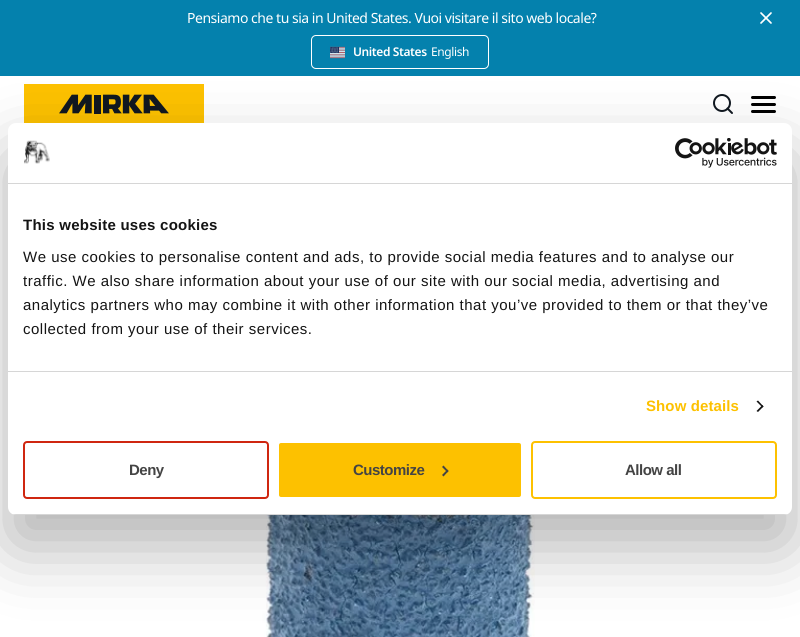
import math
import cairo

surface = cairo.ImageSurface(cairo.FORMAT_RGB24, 800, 637)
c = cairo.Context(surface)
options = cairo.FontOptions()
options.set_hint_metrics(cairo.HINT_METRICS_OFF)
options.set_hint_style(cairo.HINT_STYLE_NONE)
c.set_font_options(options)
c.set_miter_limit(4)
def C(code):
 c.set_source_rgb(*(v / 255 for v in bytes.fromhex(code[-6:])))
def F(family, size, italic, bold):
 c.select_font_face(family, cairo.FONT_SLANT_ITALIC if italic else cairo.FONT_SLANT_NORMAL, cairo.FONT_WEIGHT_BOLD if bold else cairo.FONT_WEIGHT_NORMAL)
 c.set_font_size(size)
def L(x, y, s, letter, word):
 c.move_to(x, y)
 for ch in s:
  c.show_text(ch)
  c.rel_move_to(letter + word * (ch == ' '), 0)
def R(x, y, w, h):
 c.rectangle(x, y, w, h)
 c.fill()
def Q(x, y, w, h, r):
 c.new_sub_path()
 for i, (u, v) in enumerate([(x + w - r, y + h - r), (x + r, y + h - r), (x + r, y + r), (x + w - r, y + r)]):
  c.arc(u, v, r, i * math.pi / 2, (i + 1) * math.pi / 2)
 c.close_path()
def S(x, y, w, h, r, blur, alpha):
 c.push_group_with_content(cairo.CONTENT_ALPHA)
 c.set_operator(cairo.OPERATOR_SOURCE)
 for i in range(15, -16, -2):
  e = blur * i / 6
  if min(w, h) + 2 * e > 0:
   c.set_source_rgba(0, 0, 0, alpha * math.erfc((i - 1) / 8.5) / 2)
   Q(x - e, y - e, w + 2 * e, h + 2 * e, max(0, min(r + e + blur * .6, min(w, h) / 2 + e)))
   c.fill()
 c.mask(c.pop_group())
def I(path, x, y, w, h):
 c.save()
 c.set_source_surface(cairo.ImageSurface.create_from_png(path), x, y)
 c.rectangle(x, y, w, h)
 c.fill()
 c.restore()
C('ffffff')
c.paint()
C('0481ad')
R(0,0,800,76)
F('Noto Sans',14,0,0)
C('ffffff')
L(187,23,'Pensiamo che tu sia in United States. Vuoi visitare il sito web locale?',-.48,0)
c.new_path()
c.move_to(771,13)
c.line_to(761,23)
c.move_to(761,13)
c.line_to(771,23)
c.set_line_width(1.7)
c.set_line_cap(cairo.LINE_CAP_ROUND)
c.set_line_join(cairo.LINE_JOIN_ROUND)
c.stroke()
Q(311.5,35.5,177,33,4.5)
c.set_line_width(1)
c.set_line_cap(cairo.LINE_CAP_BUTT)
c.set_line_join(cairo.LINE_JOIN_MITER)
c.stroke()
I('1.png',330,46,15,13)
F('Noto Sans SemiBold',12,0,0)
L(353,56,'United States',-.4,0)
F('Noto Sans',12,0,0)
L(431,56,'English',-.4,0)
I('2.png',24,84,180,39)
c.arc(722,103,8,0,2 * math.pi)
C('101820')
c.set_line_width(2)
c.stroke()
c.new_path()
c.move_to(732,113)
c.line_to(727.5,108.5)
c.set_line_cap(cairo.LINE_CAP_ROUND)
c.set_line_join(cairo.LINE_JOIN_ROUND)
c.stroke()
C('000000')
Q(751,103,25,3,1.5)
c.fill()
Q(751,96,25,3,1.5)
c.fill()
Q(751,110,25,3,1.5)
c.fill()
I('3.png',262,515,273,122)
C('000000')
S(8,155,784,392,8,34,.3)
C('ffffff')
Q(8,123,784,392,8)
c.fill()
C('d6d6d6')
R(8,183,784,1)
I('4.png',24,140,26,24)
I('5.png',675,138,102,30)
R(8,371,784,1)
F('Liberation Sans',15,0,1)
C('141414')
L(23,230,'This website uses cookies',.25,0)
F('Liberation Sans',15,0,0)
L(23,262,'We use cookies to personalise content and ads, to provide social media features and to analyse our',.5,0)
L(23,286,'traffic. We also share information about your use of our site with our social media, advertising and',.5,0)
L(23,310,'analytics partners who may combine it with other information that you’ve provided to them or that they’ve',.5,0)
L(23,334,'collected from your use of their services.',.5,0)
F('Liberation Sans',15,0,1)
C('fdc100')
L(646,411,'Show details',.1,0)
C('141414')
c.new_path()
c.move_to(758,400.5)
c.line_to(763.5,406.5)
c.line_to(762.5,407.5)
c.line_to(756.5,401.5)
c.close_path()
c.fill()
c.new_path()
c.move_to(762.5,405)
c.line_to(763.5,406.5)
c.line_to(758,412)
c.line_to(756.5,411)
c.close_path()
c.fill()
c.save()
Q(8,123,784,392,8)
c.clip()
C('d6d6d6')
R(8,514,784,1)
c.restore()
Q(24,442,244,56,3)
C('cf2610')
c.set_line_cap(cairo.LINE_CAP_BUTT)
c.set_line_join(cairo.LINE_JOIN_MITER)
c.stroke()
C('444444')
L(129,475,'Deny',-.5,0)
C('fdc100')
Q(278,442,244,56,3)
c.fill_preserve()
C('ffffff')
c.stroke()
C('444444')
L(353,475,'Customize',-.5,0)
c.new_path()
c.move_to(443.5,465.5)
c.line_to(448.5,471)
c.line_to(447.5,472.5)
c.line_to(442,467)
c.close_path()
c.fill()
c.new_path()
c.move_to(447.5,469.5)
c.line_to(448.5,471)
c.line_to(443.5,476.5)
c.line_to(442,475)
c.close_path()
c.fill()
Q(532,442,244,56,3)
C('fdc100')
c.stroke()
C('444444')
L(625,475,'Allow all',-.5,0)
surface.write_to_png('o.png')
